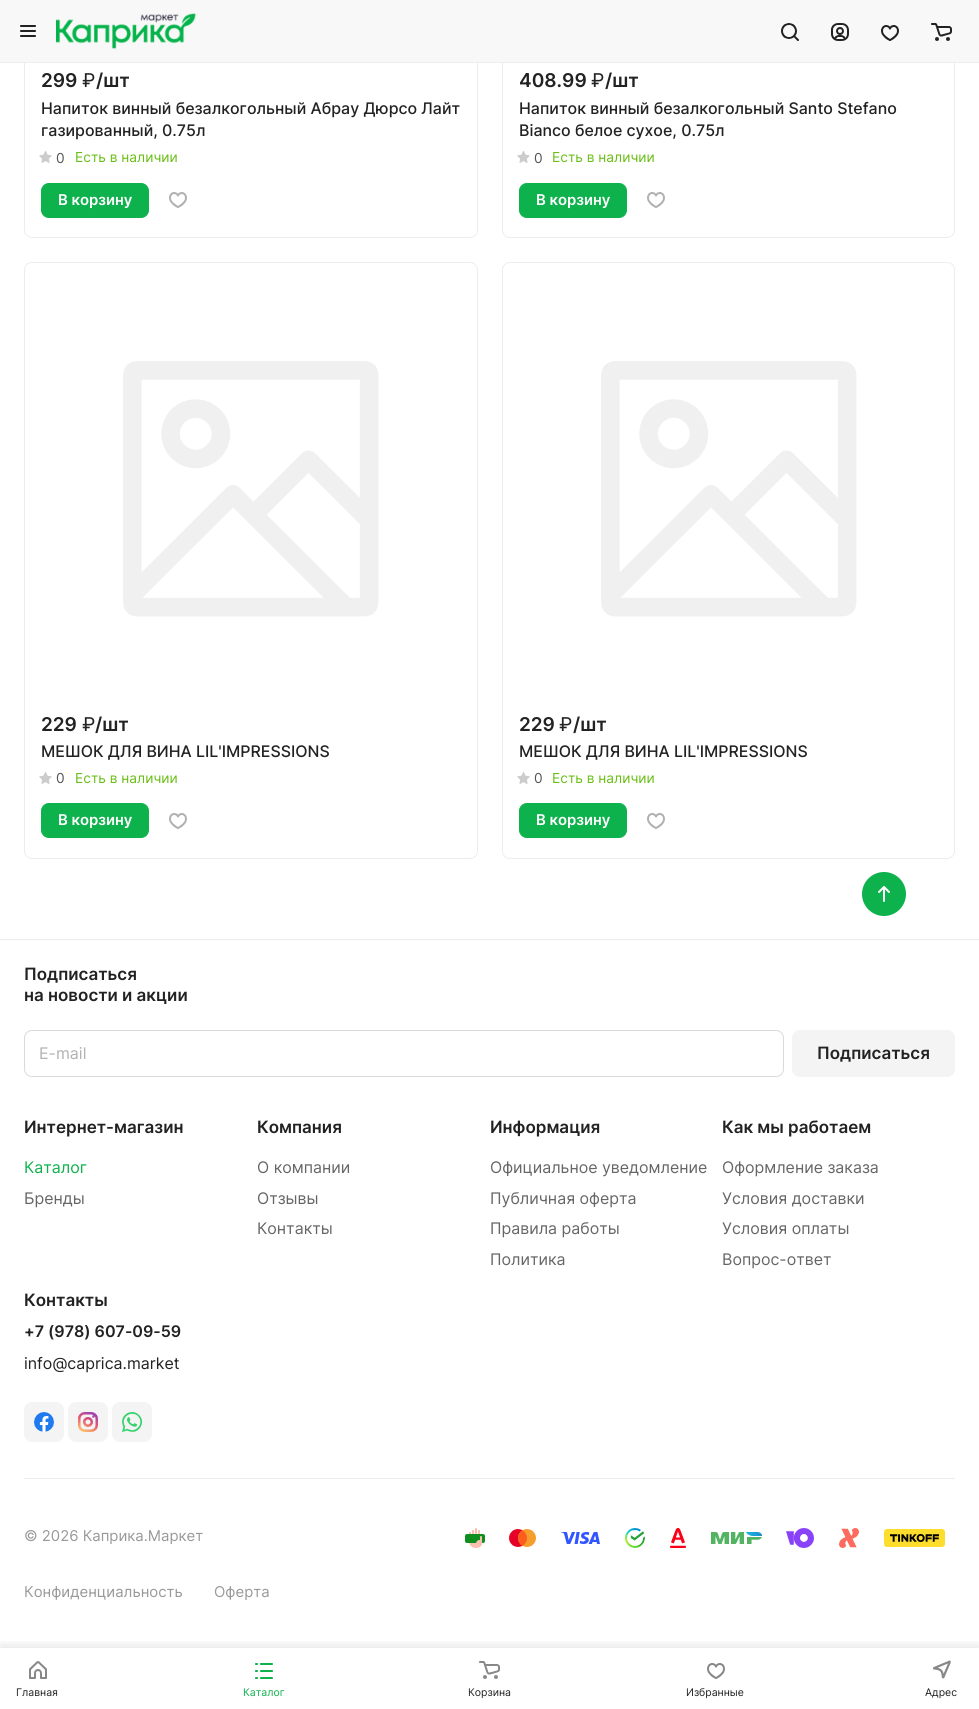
import math
import cairo

surface = cairo.ImageSurface(cairo.FORMAT_RGB24, 979, 1709)
c = cairo.Context(surface)
options = cairo.FontOptions()
options.set_hint_metrics(cairo.HINT_METRICS_OFF)
options.set_hint_style(cairo.HINT_STYLE_NONE)
c.set_font_options(options)
c.set_miter_limit(4)
def C(code):
 c.set_source_rgb(*(v / 255 for v in bytes.fromhex(code[-6:])))
def F(family, size, italic, bold):
 c.select_font_face(family, cairo.FONT_SLANT_ITALIC if italic else cairo.FONT_SLANT_NORMAL, cairo.FONT_WEIGHT_BOLD if bold else cairo.FONT_WEIGHT_NORMAL)
 c.set_font_size(size)
def T(x, y, s):
 c.move_to(x, y)
 c.show_text(s)
def R(x, y, w, h):
 c.rectangle(x, y, w, h)
 c.fill()
def Q(x, y, w, h, r):
 c.new_sub_path()
 for i, (u, v) in enumerate([(x + w - r, y + h - r), (x + r, y + h - r), (x + r, y + r), (x + w - r, y + r)]):
  c.arc(u, v, r, i * math.pi / 2, (i + 1) * math.pi / 2)
 c.close_path()
def S(x, y, w, h, r, blur, alpha):
 c.push_group_with_content(cairo.CONTENT_ALPHA)
 c.set_operator(cairo.OPERATOR_SOURCE)
 for i in range(15, -16, -2):
  e = blur * i / 6
  if min(w, h) + 2 * e > 0:
   c.set_source_rgba(0, 0, 0, alpha * math.erfc((i - 1) / 8.5) / 2)
   Q(x - e, y - e, w + 2 * e, h + 2 * e, max(0, min(r + e + blur * .6, min(w, h) / 2 + e)))
   c.fill()
 c.mask(c.pop_group())
def I(path, x, y, w, h):
 c.save()
 c.set_source_surface(cairo.ImageSurface.create_from_png(path), x, y)
 c.rectangle(x, y, w, h)
 c.fill()
 c.restore()
C('ffffff')
c.paint()
Q(24.5,-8.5,453,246,7.5)
C('ededed')
c.set_line_width(1)
c.stroke()
Q(502.5,-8.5,452,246,7.5)
c.stroke()
R(0,62,979,1)
C('f8f8f8')
R(0,0,979,62)
I('1.png',20,25,16,12)
I('2.png',56,13,140,36)
I('3.png',781,23,18,18)
I('4.png',831,23,18,18)
I('5.png',881,25,18,16)
I('6.png',931,23,21,18)
F('Inter SemiBold',19,0,0)
C('222222')
T(41,87,'299')
F('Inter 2',19,0,0)
T(82,87,'₽')
F('Inter SemiBold',19,0,0)
T(96,87,'/шт')
F('Inter Medium',15.95,0,0)
T(41,114,'Напиток винный безалкогольный Абрау Дюрсо Лайт')
T(41,136,'газированный, 0.75л')
I('7.png',39,151,13,12)
F('Inter',13.75,0,0)
C('555555')
T(56,163,'0')
C('69be15')
T(75,162,'Есть в наличии')
C('0db24c')
Q(41.5,183.5,107,34,7.5)
c.fill_preserve()
c.stroke()
F('Inter SemiBold',14.9,0,0)
C('ffffff')
T(58,205,'В корзину')
I('8.png',169,192,18,16)
F('Inter SemiBold',19,0,0)
C('222222')
T(519,87,'408.99')
F('Inter 2',19,0,0)
T(591,87,'₽')
F('Inter SemiBold',19,0,0)
T(605,87,'/шт')
F('Inter Medium',15.95,0,0)
T(519,114,'Напиток винный безалкогольный Santo Stefano')
T(519,136,'Bianco белое сухое, 0.75л')
I('7.png',517,151,13,12)
F('Inter',13.75,0,0)
C('555555')
T(534,163,'0')
C('69be15')
T(552,162,'Есть в наличии')
C('0db24c')
Q(519.5,183.5,107,34,7.5)
c.fill_preserve()
c.stroke()
F('Inter SemiBold',14.9,0,0)
C('ffffff')
T(536,205,'В корзину')
I('8.png',647,192,18,16)
Q(24.5,262.5,453,596,7.5)
C('ededed')
c.stroke()
I('9.png',123,361,256,256)
F('Inter SemiBold',19,0,0)
C('222222')
T(41,731,'229')
F('Inter 2',19,0,0)
T(82,731,'₽')
F('Inter SemiBold',19,0,0)
T(95,731,'/шт')
F('Inter Medium',15.95,0,0)
T(41,757,'МЕШОК ДЛЯ ВИНА LIL\'IMPRESSIONS')
I('7.png',39,772,13,12)
F('Inter',13.75,0,0)
C('555555')
T(56,783,'0')
C('69be15')
T(75,783,'Есть в наличии')
C('0db24c')
Q(41.5,803.5,107,34,7.5)
c.fill_preserve()
c.stroke()
F('Inter SemiBold',14.9,0,0)
C('ffffff')
T(58,825,'В корзину')
I('8.png',169,813,18,16)
Q(502.5,262.5,452,596,7.5)
C('ededed')
c.stroke()
I('9.png',601,361,256,256)
F('Inter SemiBold',19,0,0)
C('222222')
T(519,731,'229')
F('Inter 2',19,0,0)
T(559,731,'₽')
F('Inter SemiBold',19,0,0)
T(573,731,'/шт')
F('Inter Medium',15.95,0,0)
T(519,757,'МЕШОК ДЛЯ ВИНА LIL\'IMPRESSIONS')
I('7.png',517,772,13,12)
F('Inter',13.75,0,0)
C('555555')
T(534,783,'0')
C('69be15')
T(552,783,'Есть в наличии')
C('0db24c')
Q(519.5,803.5,107,34,7.5)
c.fill_preserve()
c.stroke()
F('Inter SemiBold',14.9,0,0)
C('ffffff')
T(536,825,'В корзину')
I('8.png',647,813,18,16)
C('0db24c')
c.arc(884,894,22,0,2 * math.pi)
c.fill()
I('10.png',878,886,12,16)
C('ededed')
R(0,939,979,1)
F('Inter SemiBold',17,0,0)
C('222222')
T(24,980,'Подписаться')
T(24,1001,'на новости и акции')
Q(24.5,1030.5,759,46,7.5)
C('dadada')
c.stroke()
F('Inter',16,0,0)
C('b2b2b2')
T(39,1059,'E-mail')
C('f4f4f4')
Q(792.5,1030.5,162,46,7.5)
c.fill_preserve()
c.stroke()
F('Inter SemiBold',17,0,0)
C('222222')
T(817,1059,'Подписаться')
T(24,1133,'Интернет-магазин')
F('Inter',15.95,0,0)
C('0db24c')
T(24,1173,'Каталог')
C('666666')
T(24,1204,'Бренды')
F('Inter SemiBold',17,0,0)
C('222222')
T(257,1133,'Компания')
F('Inter',15.95,0,0)
C('666666')
T(257,1173,'О компании')
T(257,1204,'Отзывы')
T(257,1234,'Контакты')
F('Inter SemiBold',17,0,0)
C('222222')
T(490,1133,'Информация')
F('Inter',15.95,0,0)
C('666666')
T(490,1173,'Официальное уведомление')
T(490,1204,'Публичная оферта')
T(490,1234,'Правила работы')
T(490,1265,'Политика')
F('Inter SemiBold',17,0,0)
C('222222')
T(722,1133,'Как мы работаем')
F('Inter',15.95,0,0)
C('666666')
T(722,1173,'Оформление заказа')
T(722,1204,'Условия доставки')
T(722,1234,'Условия оплаты')
T(722,1265,'Вопрос-ответ')
F('Inter SemiBold',17,0,0)
C('222222')
T(24,1306,'Контакты')
F('Inter SemiBold',15.95,0,0)
T(24,1337,'+7 (978) 607-09-59')
F('Inter',15.95,0,0)
T(24,1369,'info@caprica.market')
C('f4f4f4')
Q(24,1402,40,40,8)
c.fill()
I('11.png',34,1412,20,20)
Q(68,1402,40,40,8)
c.fill()
I('12.png',78,1412,20,20)
Q(112,1402,40,40,8)
c.fill()
I('13.png',122,1412,20,20)
C('ededed')
R(24,1478,931,1)
F('Inter',14.9,0,0)
C('999999')
T(24,1541,'© 2026 Каприка.Маркет')
I('14.png',465,1528,20,20)
I('15.png',509,1529,27,18)
I('16.png',561,1532,39,12)
I('17.png',625,1528,20,20)
I('18.png',670,1528,16,20)
I('19.png',711,1532,51,12)
I('20.png',786,1528,28,20)
I('21.png',839,1528,20,20)
I('22.png',884,1529,61,18)
T(24,1597,'Конфиденциальность')
T(214,1597,'Оферта')
c.save()
c.rectangle(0,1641,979,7)
c.clip()
C('000000')
S(0,1645,979,61,0,5,.1)
c.restore()
I('23.png',29,1661,18,18)
F('Inter',10.5,0,0)
C('222222')
T(16,1696,'Главная')
I('24.png',255,1663,18,16)
C('0db24c')
T(243,1696,'Каталог')
I('25.png',479,1661,21,18)
C('222222')
T(468,1696,'Корзина')
I('26.png',707,1663,18,16)
T(686,1696,'Избранные')
I('27.png',933,1660,18,19)
T(925,1696,'Адрес')
surface.write_to_png('o.png')
